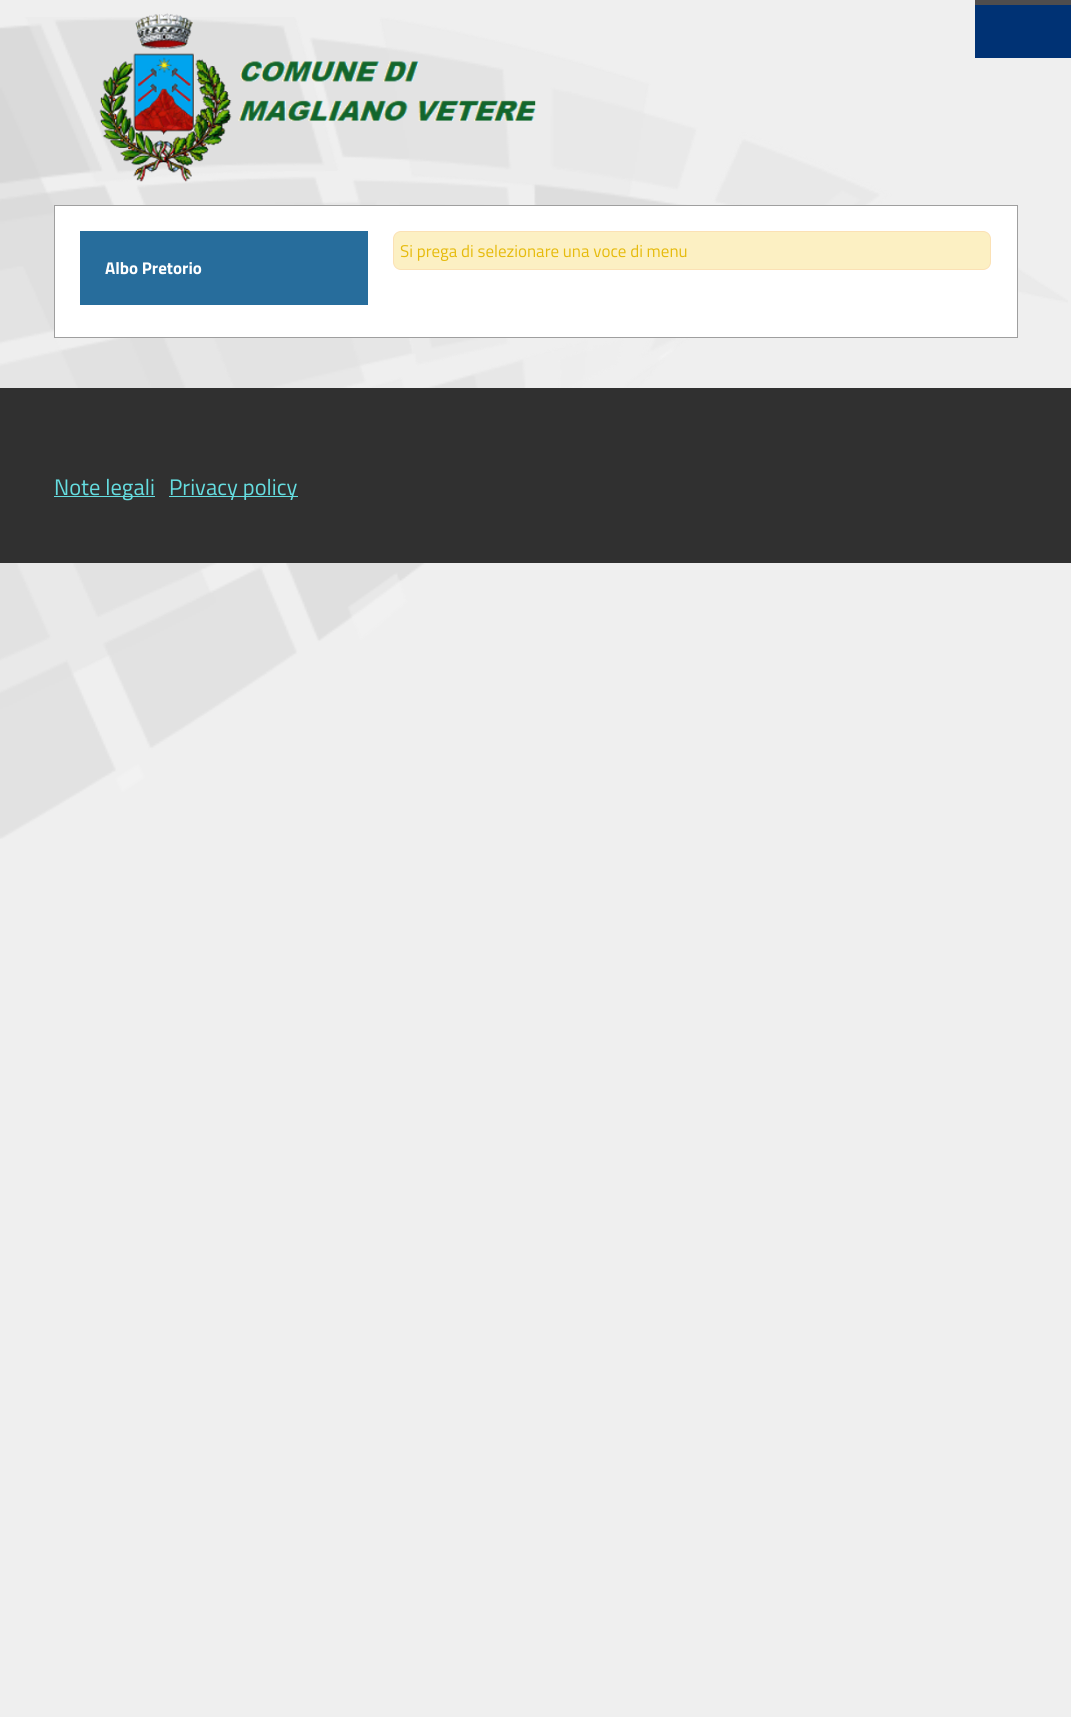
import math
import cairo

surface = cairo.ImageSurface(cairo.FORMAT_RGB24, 1071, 1717)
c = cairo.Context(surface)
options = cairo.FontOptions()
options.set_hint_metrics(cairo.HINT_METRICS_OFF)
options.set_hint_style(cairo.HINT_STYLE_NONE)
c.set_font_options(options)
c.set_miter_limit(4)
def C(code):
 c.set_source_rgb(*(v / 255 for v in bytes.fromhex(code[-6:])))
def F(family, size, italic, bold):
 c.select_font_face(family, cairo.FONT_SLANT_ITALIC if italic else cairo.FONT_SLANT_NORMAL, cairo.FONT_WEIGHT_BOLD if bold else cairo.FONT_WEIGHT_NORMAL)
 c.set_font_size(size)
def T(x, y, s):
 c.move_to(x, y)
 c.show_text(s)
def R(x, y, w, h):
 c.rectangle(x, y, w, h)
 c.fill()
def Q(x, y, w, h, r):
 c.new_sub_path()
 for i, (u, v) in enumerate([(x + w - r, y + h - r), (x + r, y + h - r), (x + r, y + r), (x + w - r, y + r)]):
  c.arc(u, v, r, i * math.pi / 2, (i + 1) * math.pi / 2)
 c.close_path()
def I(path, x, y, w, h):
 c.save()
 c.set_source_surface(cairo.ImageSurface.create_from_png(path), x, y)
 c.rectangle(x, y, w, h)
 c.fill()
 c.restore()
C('efefef')
c.paint()
I('1.png',0,17,1068,822)
C('4f4d4d')
R(975,0,96,5)
C('003274')
R(975,5,96,53)
I('2.png',99,13,437,169)
C('ffffff')
c.rectangle(54.5,205.5,963,132)
c.fill_preserve()
C('9f9f9f')
c.set_line_width(1)
c.stroke()
C('fcf0c3')
Q(393.5,231.5,597,38,7.5)
c.fill_preserve()
C('fbe1b5')
c.stroke()
F('Titillium Web',17,0,0)
C('e6bb0d')
T(400,257,'Si prega di selezionare una voce di menu')
C('276d9c')
R(80,231,288,74)
F('Titillium Web',17,0,1)
C('ffffff')
T(105,274,'Albo Pretorio')
C('303030')
R(0,388,1071,175)
C('65dde0')
R(54,496,101,1)
F('Titillium Web',22.5,0,0)
T(54,495,'Note legali')
R(169,496,129,1)
T(169,495,'Privacy policy')
surface.write_to_png('o.png')
